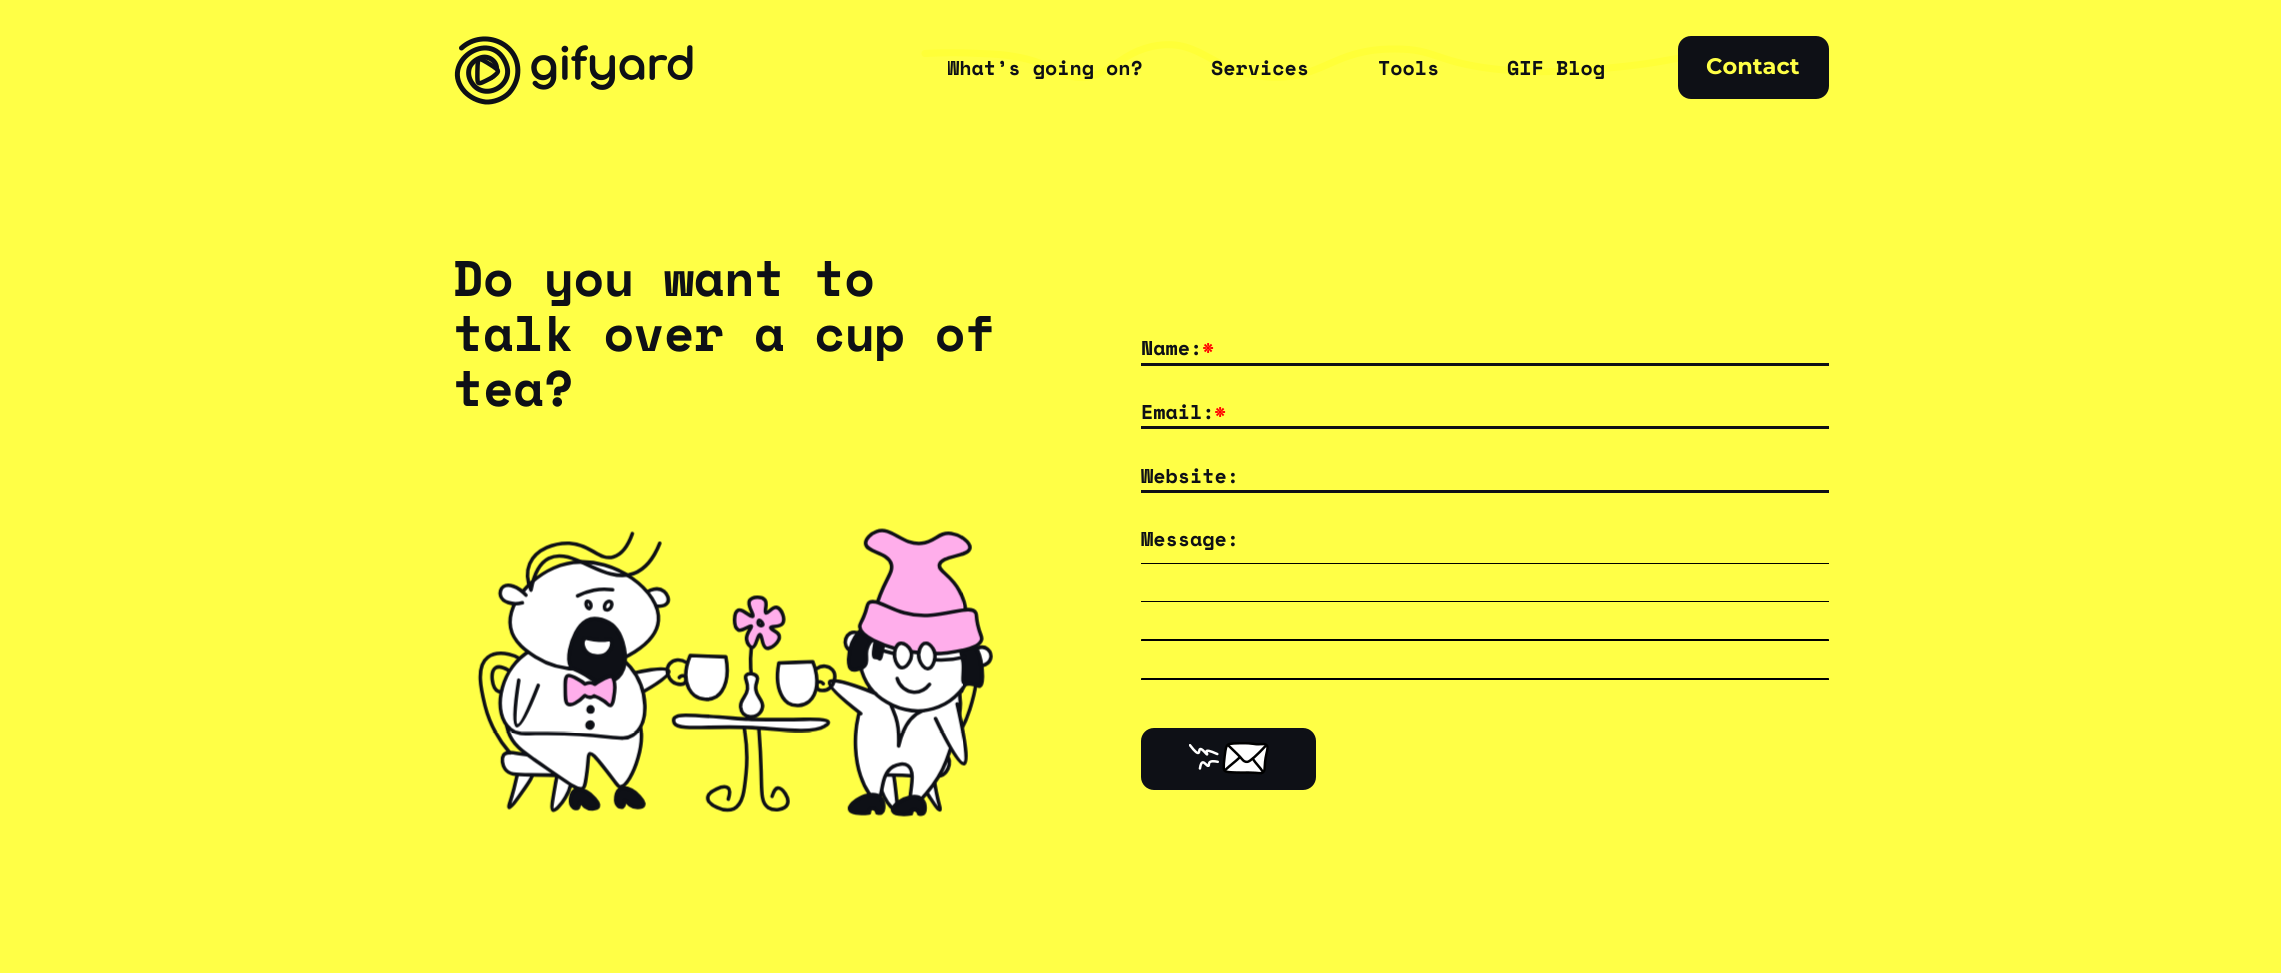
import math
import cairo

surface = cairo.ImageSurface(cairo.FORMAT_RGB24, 2281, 973)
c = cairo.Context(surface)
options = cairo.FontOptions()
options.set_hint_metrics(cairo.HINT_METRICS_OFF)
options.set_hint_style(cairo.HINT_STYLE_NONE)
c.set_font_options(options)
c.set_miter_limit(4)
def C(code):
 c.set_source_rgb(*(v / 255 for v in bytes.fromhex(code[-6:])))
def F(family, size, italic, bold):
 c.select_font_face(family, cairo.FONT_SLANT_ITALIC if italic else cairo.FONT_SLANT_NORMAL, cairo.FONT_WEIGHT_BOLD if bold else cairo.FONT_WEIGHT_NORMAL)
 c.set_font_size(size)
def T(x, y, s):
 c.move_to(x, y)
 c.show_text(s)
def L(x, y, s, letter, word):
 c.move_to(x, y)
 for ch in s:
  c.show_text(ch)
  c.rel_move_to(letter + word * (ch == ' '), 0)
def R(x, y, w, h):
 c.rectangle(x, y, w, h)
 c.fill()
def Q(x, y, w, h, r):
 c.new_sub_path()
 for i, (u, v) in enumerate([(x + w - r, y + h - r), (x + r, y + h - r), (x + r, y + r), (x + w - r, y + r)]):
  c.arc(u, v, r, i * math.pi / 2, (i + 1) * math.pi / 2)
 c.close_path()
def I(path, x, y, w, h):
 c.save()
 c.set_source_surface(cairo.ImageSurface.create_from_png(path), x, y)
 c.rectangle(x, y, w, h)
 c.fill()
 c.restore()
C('ffff46')
c.paint()
c.new_path()
c.move_to(461.5,48)
c.curve_to(484,27.5,522,44,517.5,75.5)
c.curve_to(516.5,82,513.5,88,509,93)
c.curve_to(503,99,493.5,102.5,485.5,102)
c.curve_to(477.5,101,470.5,97.5,465,92)
c.curve_to(438,63,490,27.5,505.5,62.5)
c.curve_to(516.5,86,482,103.5,470.5,80.5)
c.curve_to(468.5,76.5,468,72,469.5,67.5)
c.curve_to(471.5,62.5,476.5,59,481.5,57.5)
c.curve_to(489,55.5,497.5,61.5,496.5,70)
c.curve_to(496,75,490.5,80,485,78)
c.curve_to(479.5,76,479.5,69.5,485,67)
C('0e1016')
c.set_line_width(5)
c.set_line_cap(cairo.LINE_CAP_ROUND)
c.set_line_join(cairo.LINE_JOIN_ROUND)
c.stroke()
I('1.png',475,59,26,27)
I('2.png',531,45,162,45)
c.new_path()
c.move_to(1814.5,91)
c.curve_to(1769.5,85,1770,63,1719.5,56.5)
c.curve_to(1686.5,52,1682.5,61,1613.5,67.5)
c.curve_to(1576,71,1539,74,1494.5,69)
c.curve_to(1435,62,1436,49,1395.5,49)
c.curve_to(1332,48.5,1323.5,80,1269,77)
c.curve_to(1212.5,73.5,1202.5,39,1157.5,45.5)
c.curve_to(1117.5,51.5,1109,81,1075,77)
c.curve_to(1055,74,1050,62.5,1014.5,56.5)
c.curve_to(1003.5,54.5,994,54,980,53.5)
c.curve_to(961.5,52.5,943,52.5,925,53.5)
C('ffff38')
c.set_line_width(7.1)
c.stroke()
c.save()
c.rectangle(948,54,195,27)
c.clip()
F('Space Mono',20,0,1)
C('0e1016')
T(947,75,'What’s going on?')
c.restore()
F('Space Mono',20,0,1)
C('0e1016')
T(1211,75,'Services')
T(1378,75,'Tools')
T(1507,75,'GIF Blog')
Q(1678,36,151,63,13)
c.fill()
F('Montserrat',22.5,0,1)
C('ffff46')
T(1706,74,'Contact')
F('Space Mono',50,0,1)
C('0e1016')
L(453,296,'Do you want to',-.5,0)
L(453,351,'talk over a cup of',-.5,0)
L(453,406,'tea?',-.5,0)
I('3.png',477,528,516,289)
F('Space Mono',20,0,1)
T(1141,355,'Name:')
C('ff0000')
T(1202,355,'*')
C('0e1016')
R(1141,363,688,3)
T(1141,419,'Email:')
C('ff0000')
T(1214,419,'*')
C('0e1016')
R(1141,426,688,3)
T(1141,483,'Website:')
R(1141,490,688,3)
T(1141,546,'Message:')
C('000000')
R(1141,563,688,1)
R(1141,601,688,1)
Q(1141,639,688,1,.5)
c.fill()
R(1141,640,688,1)
Q(1141,678,688,1,.5)
c.fill()
R(1141,679,688,1)
C('0e1016')
Q(1141,728,175,62,13)
c.fill()
I('4.png',1189,742,80,33)
surface.write_to_png('o.png')
